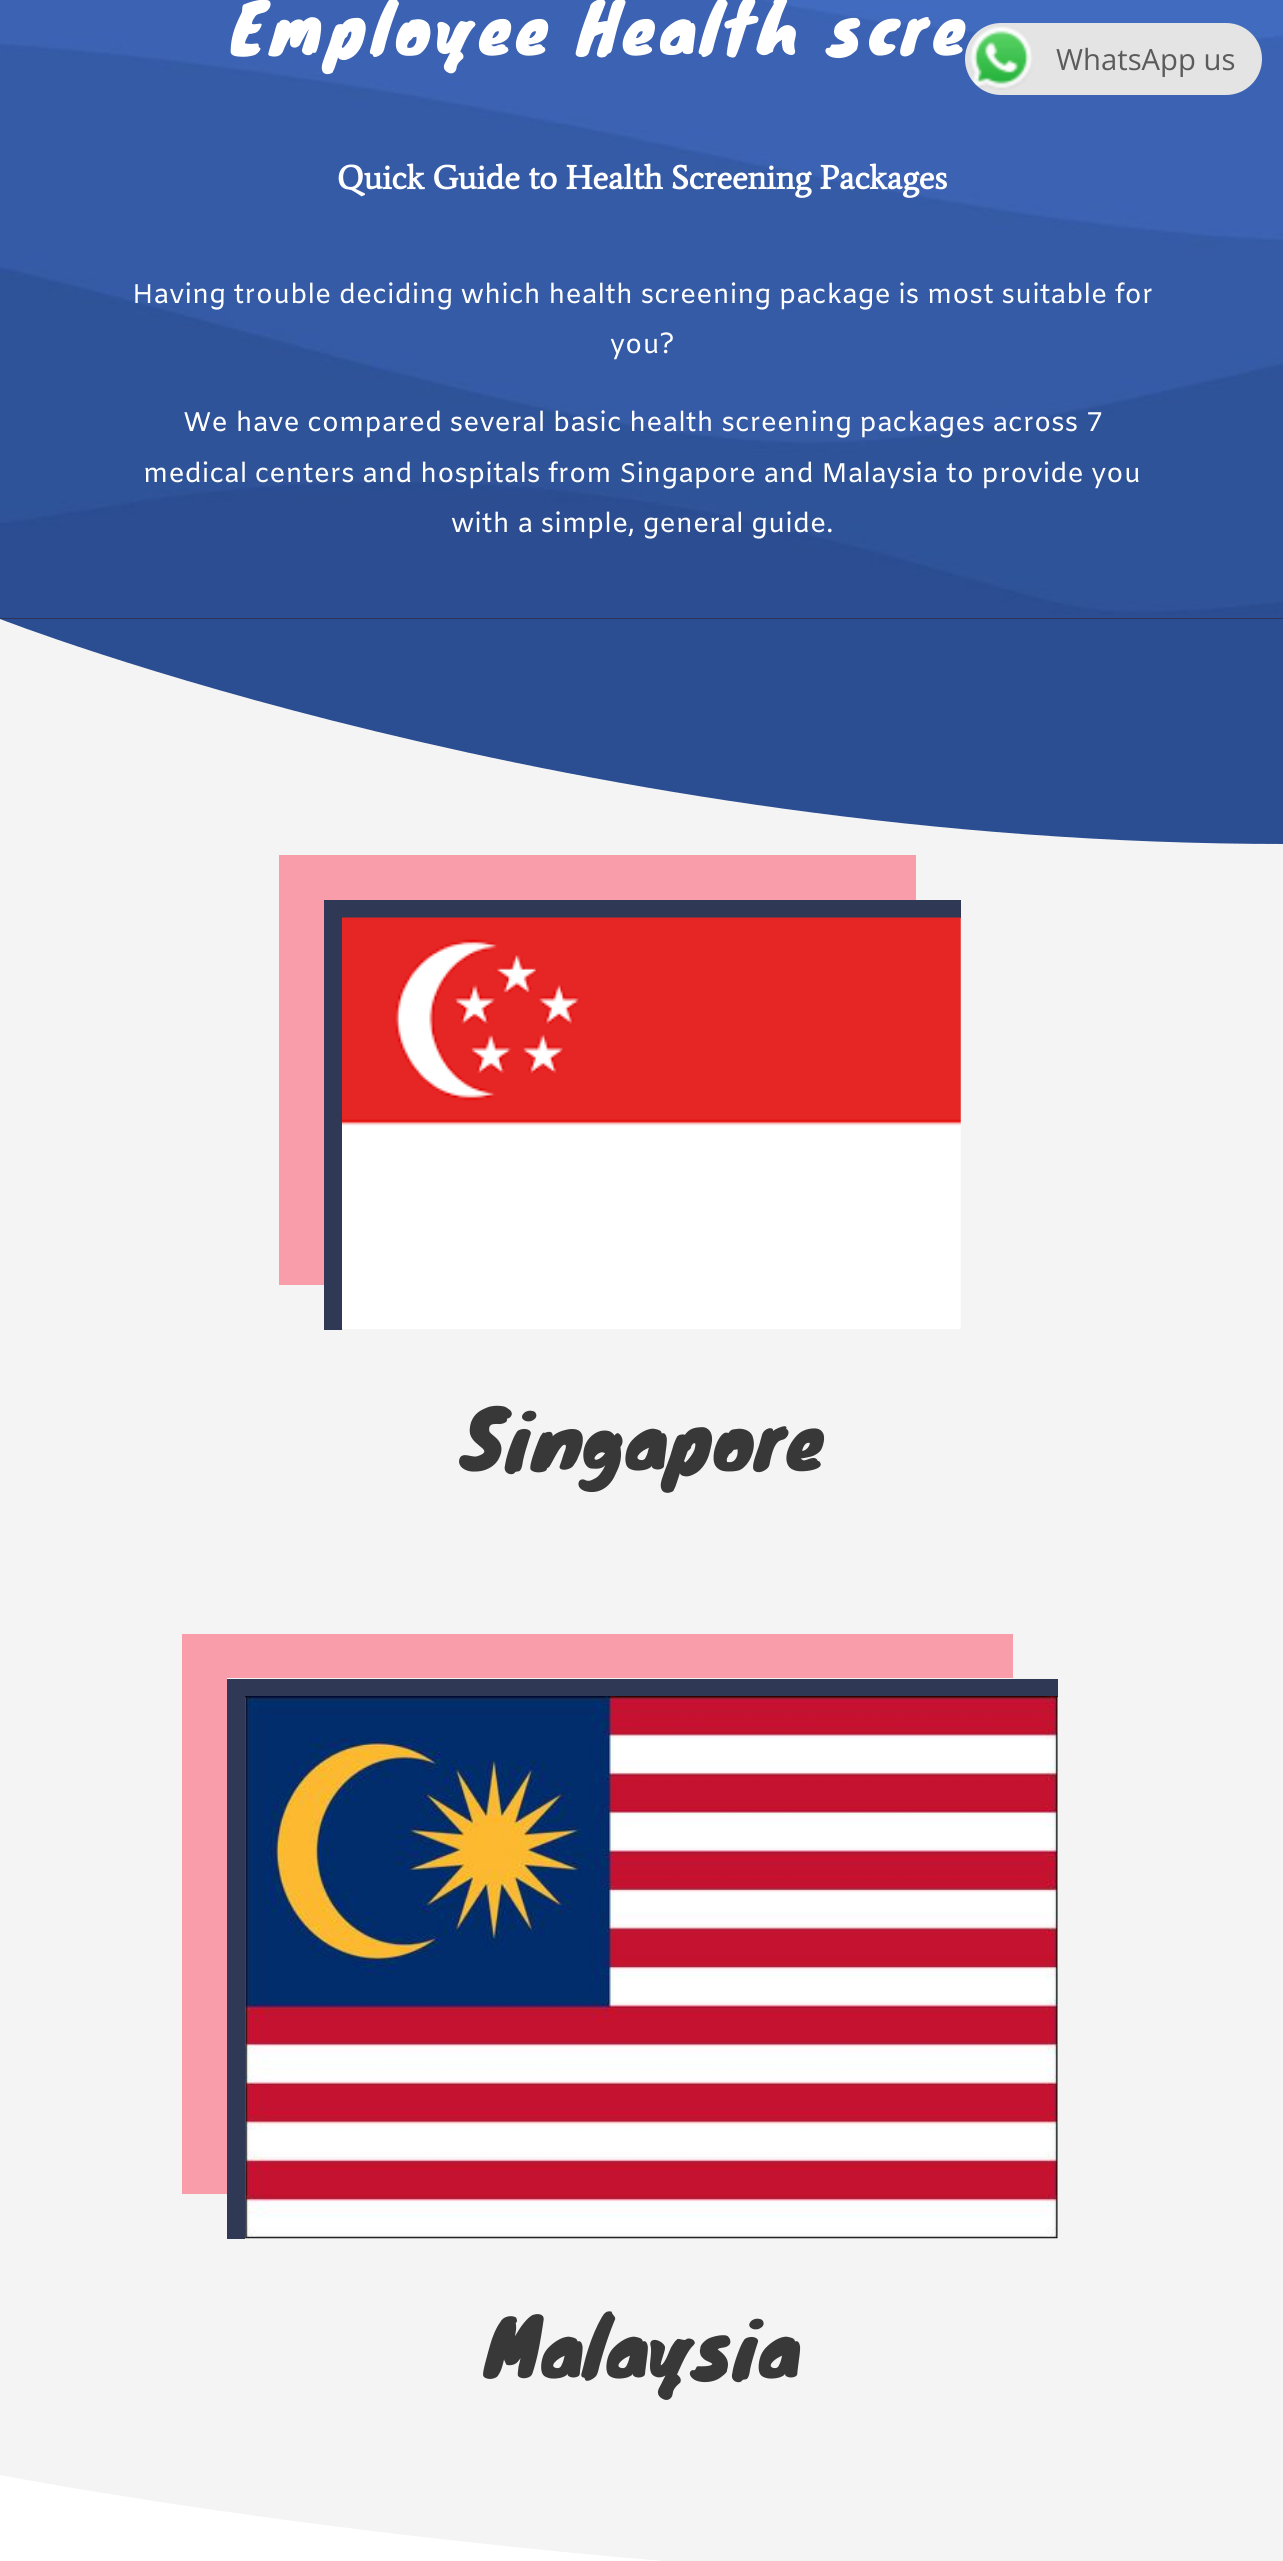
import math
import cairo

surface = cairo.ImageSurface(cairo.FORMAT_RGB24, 1283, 2561)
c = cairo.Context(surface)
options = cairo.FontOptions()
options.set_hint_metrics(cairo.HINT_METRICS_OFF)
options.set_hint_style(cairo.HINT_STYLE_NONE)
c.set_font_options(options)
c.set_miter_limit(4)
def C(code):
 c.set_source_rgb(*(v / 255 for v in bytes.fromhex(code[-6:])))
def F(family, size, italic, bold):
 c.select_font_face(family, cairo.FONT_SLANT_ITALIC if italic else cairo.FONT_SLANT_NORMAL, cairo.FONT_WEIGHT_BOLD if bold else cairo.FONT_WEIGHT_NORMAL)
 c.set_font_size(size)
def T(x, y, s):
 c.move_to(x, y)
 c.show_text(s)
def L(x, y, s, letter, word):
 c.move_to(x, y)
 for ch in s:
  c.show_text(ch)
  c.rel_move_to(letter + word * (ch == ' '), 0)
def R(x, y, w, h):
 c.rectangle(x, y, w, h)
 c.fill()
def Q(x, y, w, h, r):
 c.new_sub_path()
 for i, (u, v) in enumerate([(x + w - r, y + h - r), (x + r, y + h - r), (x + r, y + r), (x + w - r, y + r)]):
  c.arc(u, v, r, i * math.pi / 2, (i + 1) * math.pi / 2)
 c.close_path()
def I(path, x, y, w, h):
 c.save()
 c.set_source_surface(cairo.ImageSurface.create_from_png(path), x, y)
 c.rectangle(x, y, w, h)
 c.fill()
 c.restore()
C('ffffff')
c.paint()
C('2c2c45')
R(0,618,1283,1)
I('1.png',0,0,1283,619)
F('Knewave',67.5,0,0)
C('ffffff')
L(230,52,'Employee Health scre',4.5,0)
F('Average',33.75,0,1)
T(337,189,'Quick Guide to Health Screening Packages')
F('Amiko',27,0,0)
T(132,303,'Having trouble deciding which health screening package is most suitable for')
T(610,353,'you?')
T(183,431,'We have compared several basic health screening packages across 7')
T(143,482,'medical centers and hospitals from Singapore and Malaysia to provide you')
T(451,532,'with a simple, general guide.')
C('f4f4f4')
R(0,619,650,169)
R(0,788,1283,1687)
C('2b4d91')
c.new_path()
c.move_to(0,619)
c.curve_to(0,619,575,844,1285,844)
c.line_to(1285,619)
c.close_path()
c.fill()
C('f89da9')
c.new_path()
c.move_to(279,855)
c.line_to(279,1285)
c.line_to(324,1285)
c.line_to(324,900)
c.line_to(916,900)
c.line_to(916,855)
c.close_path()
c.fill()
C('2f3854')
R(342,900,619,18)
R(324,900,18,430)
I('2.png',342,917,619,412)
F('Knewave',78.75,0,0)
C('383838')
T(461,1467,'Singapore')
C('f89da9')
c.new_path()
c.move_to(182,1634)
c.line_to(182,2194)
c.line_to(227,2194)
c.line_to(227,1678)
c.line_to(1013,1678)
c.line_to(1013,1634)
c.close_path()
c.fill()
C('2f3854')
R(245,1679,813,18)
R(227,1679,18,560)
I('3.png',245,1696,813,543)
C('383838')
T(485,2375,'Malaysia')
C('f4f4f4')
c.new_path()
c.move_to(0,2475)
c.curve_to(0,2475,575,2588,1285,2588)
c.line_to(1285,2475)
c.close_path()
c.fill()
C('e4e4e4')
Q(965,23,297,72,36)
c.fill()
I('4.png',970,26,63,64)
F('Open Sans',29.25,0,0)
C('5b5b5b')
T(1056,70,'WhatsApp us')
surface.write_to_png('o.png')
